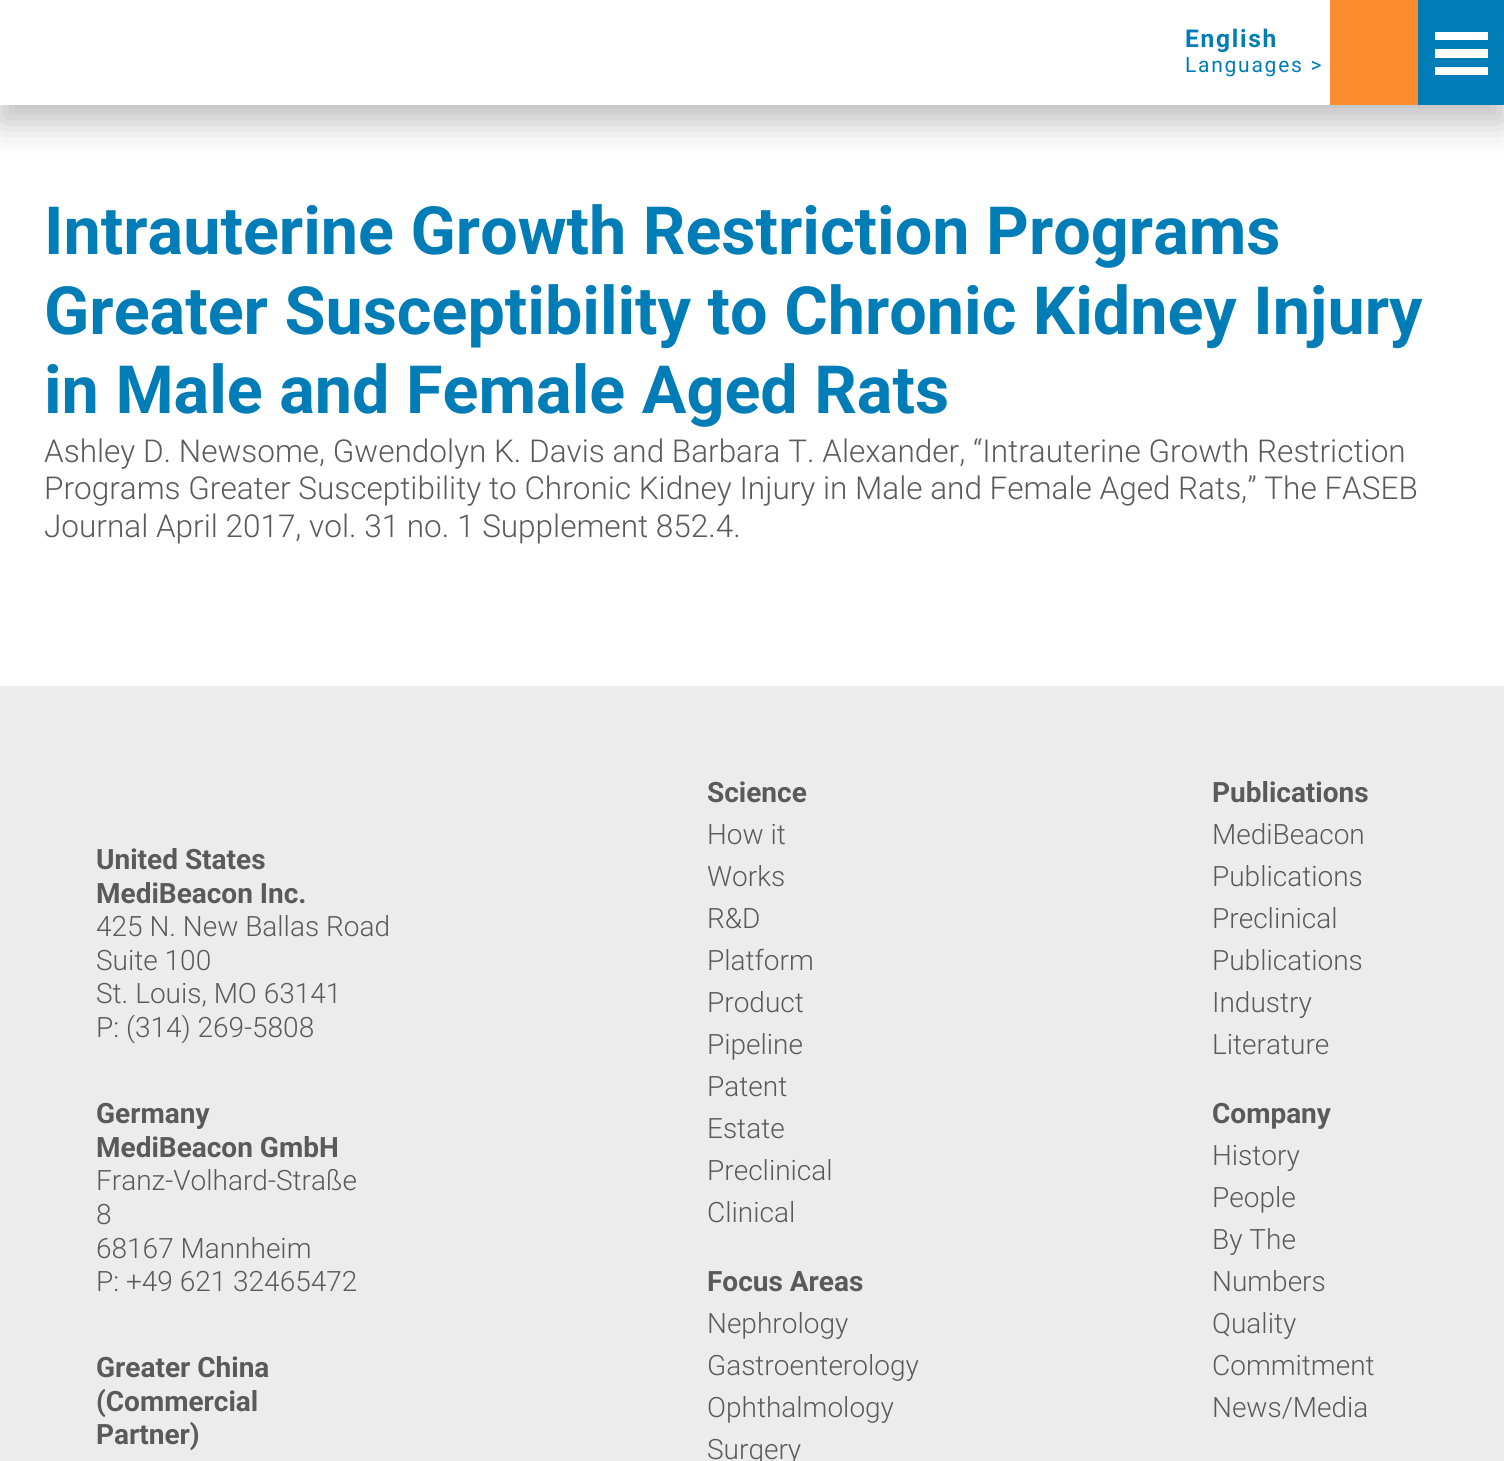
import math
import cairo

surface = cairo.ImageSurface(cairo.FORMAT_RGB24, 1504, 1461)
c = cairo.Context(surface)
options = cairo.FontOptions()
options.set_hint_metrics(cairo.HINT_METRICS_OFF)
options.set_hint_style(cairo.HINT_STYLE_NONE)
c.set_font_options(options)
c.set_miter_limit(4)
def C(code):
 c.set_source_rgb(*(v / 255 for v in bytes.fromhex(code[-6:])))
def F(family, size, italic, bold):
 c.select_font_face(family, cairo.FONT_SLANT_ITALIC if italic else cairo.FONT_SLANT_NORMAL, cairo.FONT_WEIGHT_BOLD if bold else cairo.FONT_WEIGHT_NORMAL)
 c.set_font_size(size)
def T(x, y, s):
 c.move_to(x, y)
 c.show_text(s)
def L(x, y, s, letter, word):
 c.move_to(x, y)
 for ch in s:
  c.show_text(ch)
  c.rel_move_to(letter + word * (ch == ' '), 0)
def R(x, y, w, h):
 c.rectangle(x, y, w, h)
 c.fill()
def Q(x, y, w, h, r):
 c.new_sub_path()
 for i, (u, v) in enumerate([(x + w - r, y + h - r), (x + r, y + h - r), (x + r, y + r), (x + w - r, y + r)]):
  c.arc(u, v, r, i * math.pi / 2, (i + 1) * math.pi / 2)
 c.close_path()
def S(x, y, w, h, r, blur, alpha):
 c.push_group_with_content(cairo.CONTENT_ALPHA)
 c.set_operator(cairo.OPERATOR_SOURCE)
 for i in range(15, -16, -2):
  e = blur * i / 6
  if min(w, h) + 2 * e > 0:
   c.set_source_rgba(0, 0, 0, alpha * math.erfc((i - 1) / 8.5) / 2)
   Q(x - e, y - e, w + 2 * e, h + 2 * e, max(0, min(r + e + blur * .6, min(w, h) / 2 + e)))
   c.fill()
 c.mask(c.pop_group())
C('ffffff')
c.paint()
c.save()
c.rectangle(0,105,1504,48)
c.clip()
C('777777')
S(0,18,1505,105,0,17.5,.47)
c.restore()
F('Roboto',24.5,0,1)
C('007cb7')
L(1185,47,'English',1.75,0)
F('Roboto',21,0,0)
L(1185,72,'Languages >',1.75,0)
C('fc8c30')
R(1330,0,88,105)
C('007cb7')
R(1418,0,86,105)
C('ffffff')
R(1435,32,53,8)
R(1435,49,53,9)
R(1435,67,53,8)
F('Roboto',66.5,0,1)
C('007cb7')
T(44,254,'Intrauterine Growth Restriction Programs')
T(44,334,'Greater Susceptibility to Chronic Kidney Injury')
T(44,413,'in Male and Female Aged Rats')
F('Roboto Light',31.5,0,0)
C('5a5a5a')
T(44,462,'Ashley D. Newsome, Gwendolyn K. Davis and Barbara T. Alexander, “Intrauterine Growth Restriction')
T(44,499,'Programs Greater Susceptibility to Chronic Kidney Injury in Male and Female Aged Rats,” The FASEB')
T(44,537,'Journal April 2017, vol. 31 no. 1 Supplement 852.4.')
C('ececec')
R(0,686,1504,775)
F('Roboto',28,0,1)
C('5a5a5a')
T(96,869,'United States')
T(96,903,'MediBeacon Inc.')
F('Roboto Light',28,0,0)
T(96,936,'425 N. New Ballas Road')
T(96,970,'Suite 100')
T(96,1003,'St. Louis, MO 63141')
T(96,1037,'P: (314) 269-5808')
F('Roboto',28,0,1)
T(96,1123,'Germany')
T(96,1157,'MediBeacon GmbH')
F('Roboto Light',28,0,0)
T(96,1190,'Franz-Volhard-Straße')
T(96,1224,'8')
T(96,1258,'68167 Mannheim')
T(96,1291,'P: +49 621 32465472')
F('Roboto',28,0,1)
T(96,1377,'Greater China')
T(96,1411,'(Commercial')
T(96,1444,'Partner)')
T(707,802,'Science')
F('Roboto Light',28,0,0)
T(707,844,'How it')
T(707,886,'Works')
T(707,928,'R&D')
T(707,970,'Platform')
T(707,1012,'Product')
T(707,1054,'Pipeline')
T(707,1096,'Patent')
T(707,1138,'Estate')
T(707,1180,'Preclinical')
T(707,1222,'Clinical')
F('Roboto',28,0,1)
T(707,1291,'Focus Areas')
F('Roboto Light',28,0,0)
T(707,1333,'Nephrology')
T(707,1375,'Gastroenterology')
T(707,1417,'Ophthalmology')
T(707,1459,'Surgery')
F('Roboto',28,0,1)
T(1212,802,'Publications')
F('Roboto Light',28,0,0)
T(1212,844,'MediBeacon')
T(1212,886,'Publications')
T(1212,928,'Preclinical')
T(1212,970,'Publications')
T(1212,1012,'Industry')
T(1212,1054,'Literature')
F('Roboto',28,0,1)
T(1212,1123,'Company')
F('Roboto Light',28,0,0)
T(1212,1165,'History')
T(1212,1207,'People')
T(1212,1249,'By The')
T(1212,1291,'Numbers')
T(1212,1333,'Quality')
T(1212,1375,'Commitment')
T(1212,1417,'News/Media')
surface.write_to_png('o.png')
